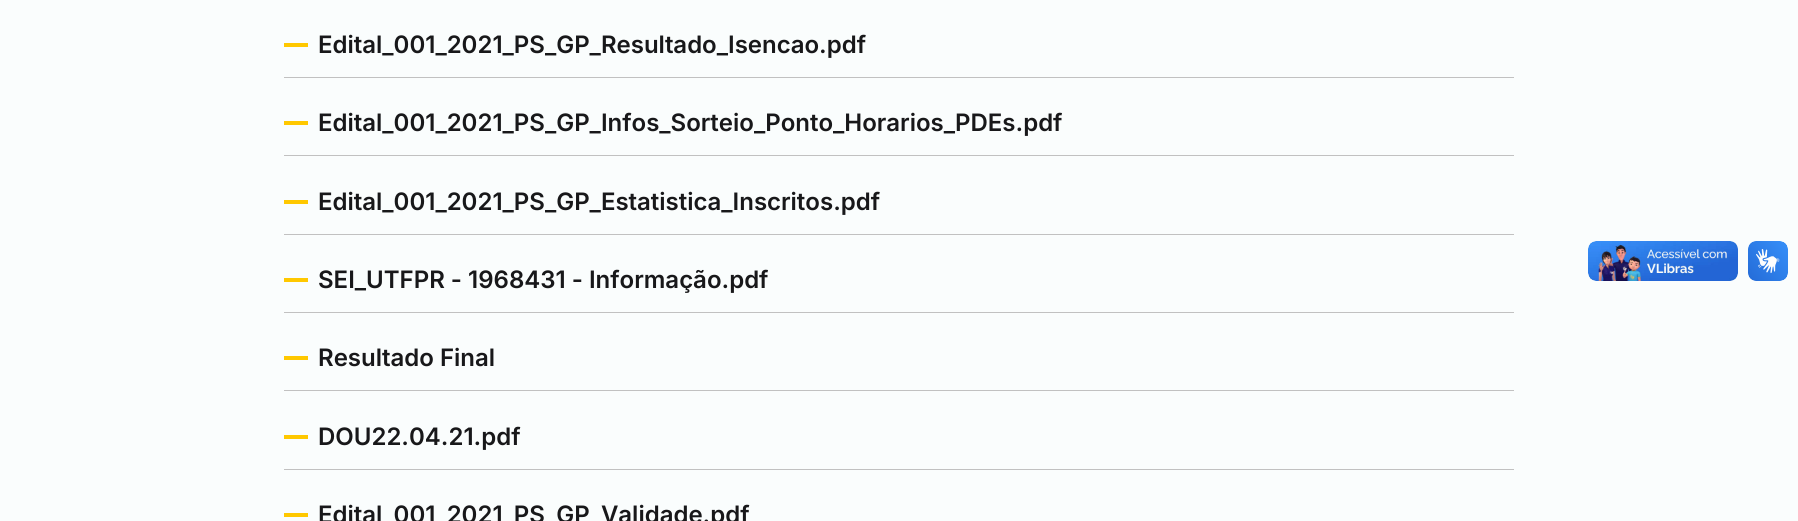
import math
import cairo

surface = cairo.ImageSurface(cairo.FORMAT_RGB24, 1798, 521)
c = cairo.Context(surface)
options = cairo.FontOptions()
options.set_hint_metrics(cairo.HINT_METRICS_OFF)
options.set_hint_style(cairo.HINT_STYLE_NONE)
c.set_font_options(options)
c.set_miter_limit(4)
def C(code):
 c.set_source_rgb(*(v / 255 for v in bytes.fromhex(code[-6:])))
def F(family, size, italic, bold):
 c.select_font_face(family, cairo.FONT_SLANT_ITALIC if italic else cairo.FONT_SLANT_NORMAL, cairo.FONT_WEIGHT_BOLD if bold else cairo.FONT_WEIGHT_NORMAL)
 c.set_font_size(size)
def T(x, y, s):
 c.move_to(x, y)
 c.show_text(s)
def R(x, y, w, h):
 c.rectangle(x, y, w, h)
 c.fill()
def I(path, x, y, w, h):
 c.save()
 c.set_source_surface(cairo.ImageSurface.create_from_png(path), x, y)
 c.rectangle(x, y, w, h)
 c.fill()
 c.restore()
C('fafdfd')
c.paint()
C('ffc800')
R(284,43,24,4)
F('Inter SemiBold',24,0,0)
C('18181a')
T(318,53,'Edital_001_2021_PS_GP_Resultado_Isencao.pdf')
C('c1c1c1')
R(284,77,1230,1)
C('ffc800')
R(284,121,24,4)
C('18181a')
T(318,131,'Edital_001_2021_PS_GP_Infos_Sorteio_Ponto_Horarios_PDEs.pdf')
C('c1c1c1')
R(284,155,1230,1)
C('ffc800')
R(284,200,24,4)
C('18181a')
T(318,210,'Edital_001_2021_PS_GP_Estatistica_Inscritos.pdf')
C('c1c1c1')
R(284,234,1230,1)
C('ffc800')
R(284,278,24,4)
C('18181a')
T(318,288,'SEI_UTFPR - 1968431 - Informação.pdf')
C('c1c1c1')
R(284,312,1230,1)
C('ffc800')
R(284,356,24,4)
C('18181a')
T(318,366,'Resultado Final')
C('c1c1c1')
R(284,390,1230,1)
C('ffc800')
R(284,435,24,4)
C('18181a')
T(318,445,'DOU22.04.21.pdf')
C('c1c1c1')
R(284,469,1230,1)
C('ffc800')
R(284,513,24,4)
C('18181a')
T(318,523,'Edital_001_2021_PS_GP_Validade.pdf')
I('1.png',1588,241,150,40)
I('2.png',1748,241,40,40)
surface.write_to_png('o.png')
